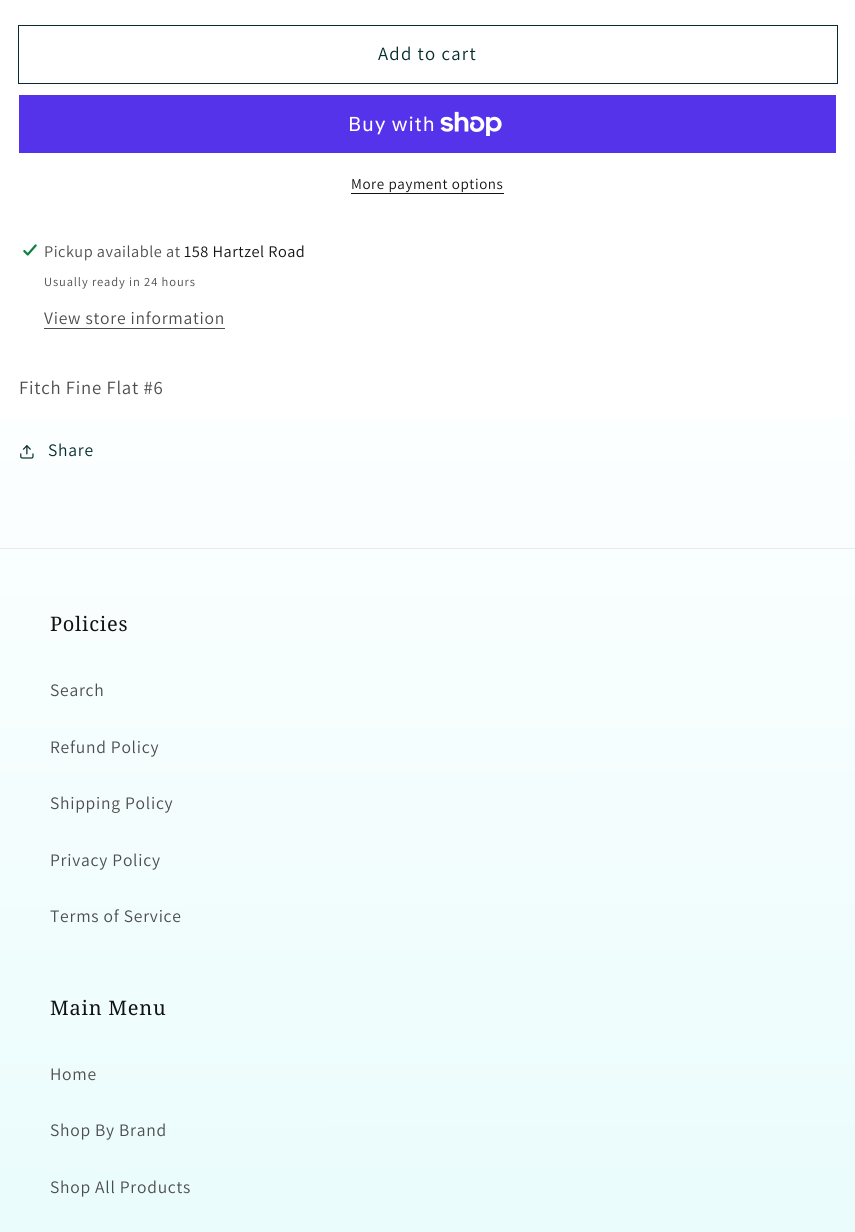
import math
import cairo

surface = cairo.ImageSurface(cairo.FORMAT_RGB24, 855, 1232)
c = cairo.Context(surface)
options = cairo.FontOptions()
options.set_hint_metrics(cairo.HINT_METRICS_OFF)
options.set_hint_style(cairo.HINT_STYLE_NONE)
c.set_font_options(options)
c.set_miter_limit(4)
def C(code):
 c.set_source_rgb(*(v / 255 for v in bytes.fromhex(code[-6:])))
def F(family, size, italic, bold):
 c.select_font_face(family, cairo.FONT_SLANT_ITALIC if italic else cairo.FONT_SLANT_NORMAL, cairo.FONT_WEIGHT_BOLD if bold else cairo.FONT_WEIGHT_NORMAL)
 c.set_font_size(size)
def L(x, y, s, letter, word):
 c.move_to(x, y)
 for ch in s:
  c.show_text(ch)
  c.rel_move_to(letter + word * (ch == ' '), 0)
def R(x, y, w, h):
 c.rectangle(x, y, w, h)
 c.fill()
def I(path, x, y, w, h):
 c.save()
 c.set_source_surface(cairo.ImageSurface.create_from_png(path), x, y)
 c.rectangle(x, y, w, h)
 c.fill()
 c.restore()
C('ffffff')
c.paint()
gradient = cairo.LinearGradient(427,0,428,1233)
gradient.add_color_stop_rgba(.25,1,1,1,1)
gradient.add_color_stop_rgba(1,0.918,0.988,0.988,1)
c.set_source(gradient)
R(0,418,855,814)
c.rectangle(18.5,25.5,819,58)
C('062c2c')
c.set_line_width(1)
c.stroke()
F('Assistant',18.75,0,0)
L(378,60,'Add to cart',1.25,0)
C('5433eb')
R(19,95,817,58)
F('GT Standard',20,0,0)
C('ffffff')
L(348,131,'Buy with',.75,0)
I('1.png',440,111,62,25)
F('Assistant',15,0,0)
C('121212')
L(351,189,'More payment options',.6,0)
R(351,193,153,1)
I('2.png',22,243,16,14)
F('Assistant',16.25,0,0)
C('4d4d4d')
L(44,257,'Pickup available at',.5,0)
C('121212')
L(184,257,'158 Hartzel Road',.5,0)
F('Assistant',12.5,0,0)
C('4d4d4d')
L(44,286,'Usually ready in 24 hours',.9,0)
F('Assistant',17.5,0,0)
L(44,324,'View store information',.75,0)
R(44,328,181,1)
F('Assistant',18.75,0,0)
L(19,394,'Fitch Fine Flat #6',.75,0)
I('3.png',20,445,14,14)
F('Assistant',17.5,0,0)
C('062c2c')
L(48,456,'Share',.75,0)
C('e7ebeb')
R(0,548,855,1)
F('Noto Serif',20,0,0)
C('121212')
L(50,631,'Policies',.75,0)
F('Assistant',17.5,0,0)
C('4d4d4d')
L(50,696,'Search',.75,0)
L(50,753,'Refund Policy',.75,0)
L(50,809,'Shipping Policy',.75,0)
L(50,866,'Privacy Policy',.75,0)
L(50,922,'Terms of Service',.75,0)
F('Noto Serif',20,0,0)
C('121212')
L(50,1015,'Main Menu',.75,0)
F('Assistant',17.5,0,0)
C('4d4d4d')
L(50,1080,'Home',.75,0)
L(50,1136,'Shop By Brand',.75,0)
L(50,1193,'Shop All Products',.75,0)
surface.write_to_png('o.png')
